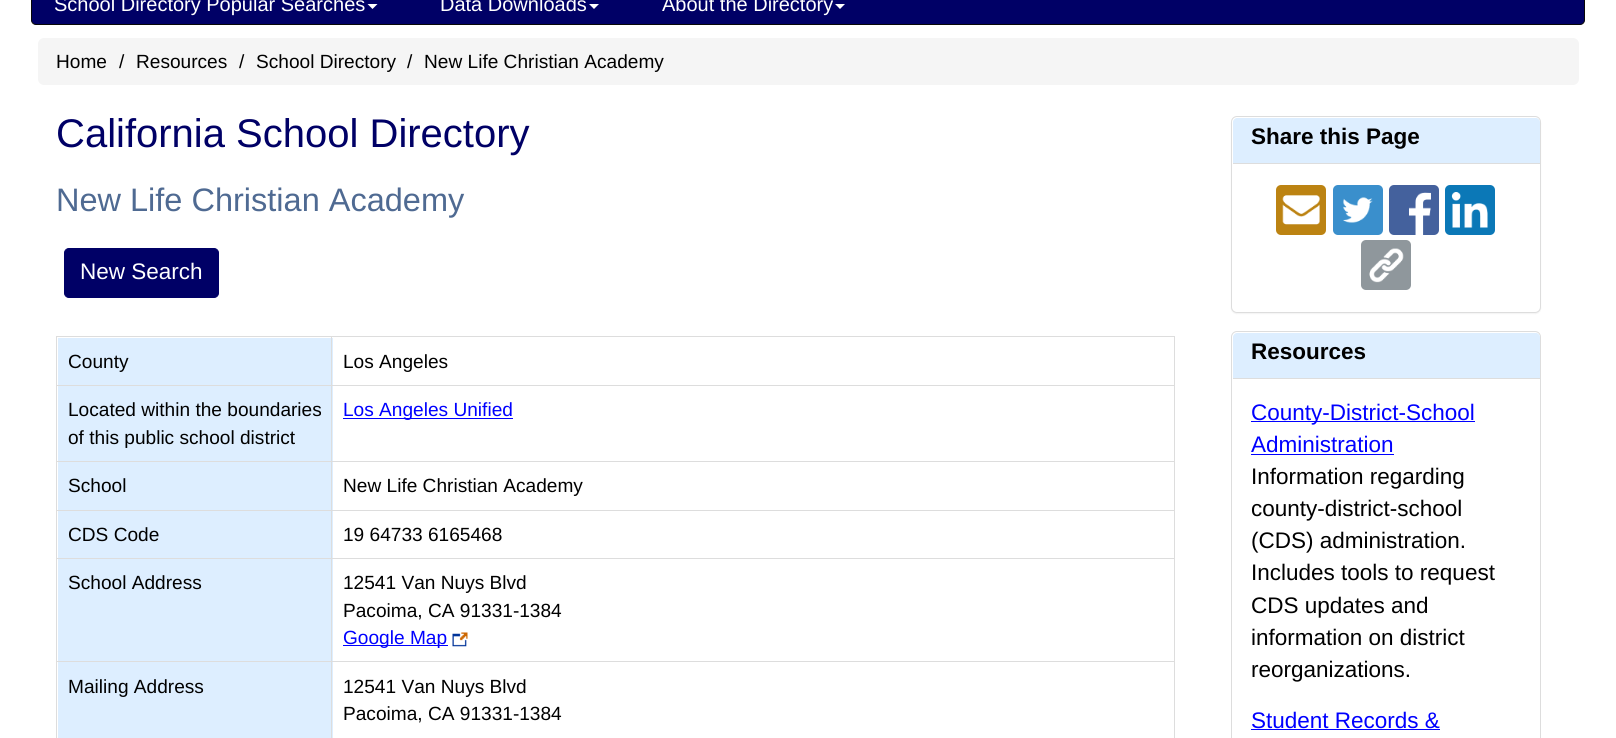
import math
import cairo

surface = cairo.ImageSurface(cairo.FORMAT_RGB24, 1616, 738)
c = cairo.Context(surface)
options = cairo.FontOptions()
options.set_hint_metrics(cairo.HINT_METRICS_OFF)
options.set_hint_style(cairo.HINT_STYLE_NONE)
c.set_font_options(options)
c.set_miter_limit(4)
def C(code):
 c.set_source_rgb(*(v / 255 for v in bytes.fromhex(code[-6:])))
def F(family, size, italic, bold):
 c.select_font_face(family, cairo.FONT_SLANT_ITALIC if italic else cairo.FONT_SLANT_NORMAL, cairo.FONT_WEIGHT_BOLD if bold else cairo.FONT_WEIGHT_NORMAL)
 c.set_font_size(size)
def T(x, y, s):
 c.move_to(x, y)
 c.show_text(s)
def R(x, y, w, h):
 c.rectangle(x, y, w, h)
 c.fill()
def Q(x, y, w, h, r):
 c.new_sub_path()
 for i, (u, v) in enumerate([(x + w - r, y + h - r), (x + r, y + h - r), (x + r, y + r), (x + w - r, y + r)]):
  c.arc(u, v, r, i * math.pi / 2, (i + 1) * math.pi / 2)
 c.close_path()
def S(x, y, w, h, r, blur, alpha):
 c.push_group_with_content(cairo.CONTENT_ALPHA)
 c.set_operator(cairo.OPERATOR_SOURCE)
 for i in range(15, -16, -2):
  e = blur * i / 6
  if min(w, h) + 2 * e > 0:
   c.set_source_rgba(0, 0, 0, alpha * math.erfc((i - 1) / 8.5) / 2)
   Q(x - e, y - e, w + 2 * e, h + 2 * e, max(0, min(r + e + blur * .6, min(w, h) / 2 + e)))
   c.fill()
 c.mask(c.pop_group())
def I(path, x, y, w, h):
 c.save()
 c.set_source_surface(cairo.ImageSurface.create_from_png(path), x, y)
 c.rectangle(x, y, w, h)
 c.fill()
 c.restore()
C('ffffff')
c.paint()
C('000066')
Q(31.5,-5.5,1553,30,4.5)
c.fill_preserve()
C('080808')
c.set_line_width(1)
c.stroke()
F('Liberation Sans',20,0,0)
C('ffffff')
T(54,11,'School Directory Popular Searches')
c.new_path()
c.move_to(367.5,4)
c.line_to(377.5,4)
c.line_to(372.5,9)
c.close_path()
c.fill()
T(440,11,'Data Downloads')
c.new_path()
c.move_to(589,4)
c.line_to(599,4)
c.line_to(594,9)
c.close_path()
c.fill()
T(662,11,'About the Directory')
c.new_path()
c.move_to(835,4)
c.line_to(845,4)
c.line_to(840,9)
c.close_path()
c.fill()
C('f5f5f5')
Q(38,38,1541,47,6)
c.fill()
F('Liberation Sans',19.1,0,0)
C('000000')
T(56,68,'Home')
T(119,68,'/')
T(136,68,'Resources')
T(239,68,'/')
T(256,68,'School Directory')
T(407,68,'/')
T(424,68,'New Life Christian Academy')
F('Liberation Sans',40,0,0)
C('000066')
T(56,147,'California School Directory')
F('Liberation Sans',32.5,0,0)
C('4f6a92')
T(56,211,'New Life Christian Academy')
C('000066')
Q(64.5,248.5,154,49,4.5)
c.fill_preserve()
c.stroke()
F('Liberation Sans',22.5,0,0)
C('ffffff')
T(80,279,'New Search')
C('dddddd')
R(56,336,1119,1)
R(1174,336,1,402)
R(56,336,1,402)
C('ddeeff')
R(58,338,275,47)
F('Liberation Sans',19.1,0,0)
C('000000')
T(68,368,'County')
C('dddddd')
R(331,385,844,1)
C('ddeeff')
R(58,386,275,75)
R(58,462,275,48)
C('dddddd')
R(331,461,844,1)
R(331,510,844,1)
C('ddeeff')
R(58,511,275,47)
C('dddddd')
R(331,558,844,1)
C('ddeeff')
R(58,559,275,179)
C('dddddd')
R(331,661,844,1)
R(331,661,1,77)
R(56,661,277,1)
R(331,558,1,105)
R(56,558,277,1)
R(331,510,1,49)
R(56,510,277,1)
R(331,461,1,50)
R(56,461,277,1)
R(331,385,1,78)
R(56,385,277,1)
R(331,336,1,50)
C('000000')
T(343,368,'Los Angeles')
T(68,416,'Located within the boundaries')
T(68,444,'of this public school district')
C('0000ff')
R(343,418,170,1)
T(343,416,'Los Angeles Unified')
C('000000')
T(68,492,'School')
T(343,492,'New Life Christian Academy')
T(68,541,'CDS Code')
T(343,541,'19 64733 6165468')
T(68,589,'School Address')
T(343,589,'12541 Van Nuys Blvd')
T(343,617,'Pacoima, CA 91331-1384')
C('0000ff')
R(343,645,105,1)
T(343,644,'Google Map')
I('1.png',452,632,16,15)
C('000000')
T(68,693,'Mailing Address')
T(343,693,'12541 Van Nuys Blvd')
T(343,720,'Pacoima, CA 91331-1384')
C('000000')
S(1231,118,310,196,6,.5,.05)
C('ffffff')
Q(1231.5,116.5,309,196,5.5)
c.fill_preserve()
C('dddddd')
c.stroke()
C('ddeeff')
c.new_path()
c.move_to(1237,118)
c.line_to(1536,118)
c.curve_to(1538,118,1540,120,1540,122)
c.line_to(1540,164)
c.line_to(1233,164)
c.line_to(1233,122)
c.curve_to(1233,120,1235,118,1237,118)
c.close_path()
c.fill()
C('dddddd')
R(1233,163,307,1)
F('Liberation Sans',22.5,0,1)
C('000000')
T(1251,144,'Share this Page')
C('bc8312')
Q(1276,185,50,50,5)
c.fill()
C('3a8fcc')
Q(1333,185,50,50,5)
c.fill()
C('44619d')
Q(1389,185,50,50,5)
c.fill()
C('0b78b7')
Q(1445,185,50,50,5)
c.fill()
I('2.png',1282,195,38,30)
I('3.png',1343,197,30,26)
I('4.png',1409,192,22,43)
I('5.png',1451,192,37,36)
C('8f979c')
Q(1361,240,50,50,5)
c.fill()
I('6.png',1369,248,35,35)
Q(1231.5,331.5,309,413,5.5)
C('dddddd')
c.stroke()
C('ddeeff')
c.new_path()
c.move_to(1237,333)
c.line_to(1536,333)
c.curve_to(1538,333,1540,335,1540,337)
c.line_to(1540,379)
c.line_to(1233,379)
c.line_to(1233,337)
c.curve_to(1233,335,1235,333,1237,333)
c.close_path()
c.fill()
C('dddddd')
R(1233,378,307,1)
C('000000')
T(1251,359,'Resources')
C('0000ff')
R(1251,421,224,1)
F('Liberation Sans',22.5,0,0)
T(1251,420,'County-District-School')
T(1251,452,'Administration')
R(1251,454,143,1)
C('000000')
T(1251,484,'Information regarding')
T(1251,516,'county-district-school')
T(1251,548,'(CDS) administration.')
T(1251,580,'Includes tools to request')
T(1251,613,'CDS updates and')
T(1251,645,'information on district')
T(1251,677,'reorganizations.')
C('0000ff')
T(1251,728,'Student Records &')
R(1251,729,189,1)
surface.write_to_png('o.png')
